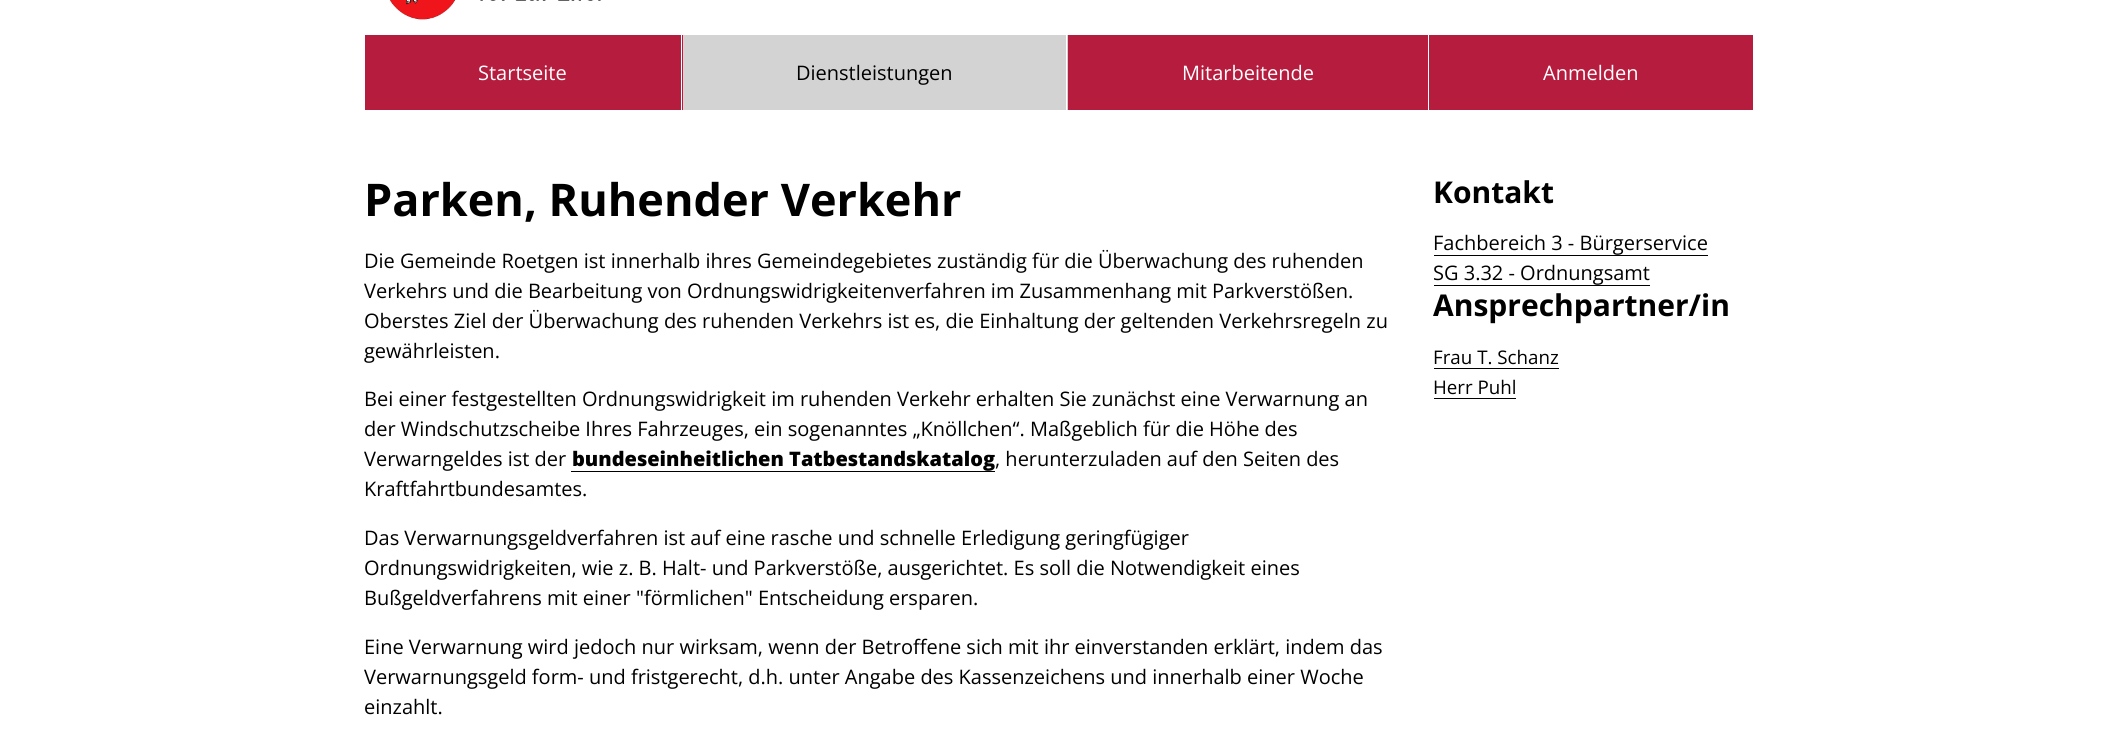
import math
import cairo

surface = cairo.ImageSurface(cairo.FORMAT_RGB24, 2116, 751)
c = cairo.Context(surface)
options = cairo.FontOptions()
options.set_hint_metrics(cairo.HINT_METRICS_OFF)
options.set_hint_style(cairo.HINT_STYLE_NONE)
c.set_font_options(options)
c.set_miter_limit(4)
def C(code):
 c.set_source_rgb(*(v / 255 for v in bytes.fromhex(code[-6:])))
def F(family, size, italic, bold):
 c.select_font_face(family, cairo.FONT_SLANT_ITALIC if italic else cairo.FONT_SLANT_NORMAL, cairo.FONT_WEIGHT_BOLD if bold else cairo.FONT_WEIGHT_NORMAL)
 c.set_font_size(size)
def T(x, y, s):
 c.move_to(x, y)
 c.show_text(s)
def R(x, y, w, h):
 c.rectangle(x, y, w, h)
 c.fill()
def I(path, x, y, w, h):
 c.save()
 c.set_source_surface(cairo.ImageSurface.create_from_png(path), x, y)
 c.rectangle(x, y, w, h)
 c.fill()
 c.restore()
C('ffffff')
c.paint()
I('1.png',390,0,211,20)
C('b61c3e')
R(365,35,1388,75)
C('ffffff')
R(681,35,1,75)
F('Open Sans',20,0,0)
T(478,80,'Startseite')
C('d3d3d3')
R(683,35,385,75)
C('ffffff')
R(1066,35,1,75)
C('000000')
T(796,80,'Dienstleistungen')
C('ffffff')
R(1428,35,1,75)
T(1182,80,'Mitarbeitende')
T(1543,80,'Anmelden')
F('Open Sans',45,0,1)
C('000000')
T(364,216,'Parken, Ruhender Verkehr')
F('Open Sans',20,0,0)
T(364,268,'Die Gemeinde Roetgen ist innerhalb ihres Gemeindegebietes zuständig für die Überwachung des ruhenden')
T(364,298,'Verkehrs und die Bearbeitung von Ordnungswidrigkeitenverfahren im Zusammenhang mit Parkverstößen.')
T(364,328,'Oberstes Ziel der Überwachung des ruhenden Verkehrs ist es, die Einhaltung der geltenden Verkehrsregeln zu')
T(364,358,'gewährleisten.')
T(364,406,'Bei einer festgestellten Ordnungswidrigkeit im ruhenden Verkehr erhalten Sie zunächst eine Verwarnung an')
T(364,436,'der Windschutzscheibe Ihres Fahrzeuges, ein sogenanntes „Knöllchen“. Maßgeblich für die Höhe des')
T(364,466,'Verwarngeldes ist der')
F('Open Sans ExtraBold',20,0,0)
T(572,466,'bundeseinheitlichen Tatbestandskatalog')
R(571,471,424,1)
F('Open Sans',20,0,0)
T(995,466,', herunterzuladen auf den Seiten des')
T(364,496,'Kraftfahrtbundesamtes.')
T(364,545,'Das Verwarnungsgeldverfahren ist auf eine rasche und schnelle Erledigung geringfügiger')
T(364,575,'Ordnungswidrigkeiten, wie z. B. Halt- und Parkverstöße, ausgerichtet. Es soll die Notwendigkeit eines')
T(364,605,'Bußgeldverfahrens mit einer "förmlichen" Entscheidung ersparen.')
T(364,654,'Eine Verwarnung wird jedoch nur wirksam, wenn der Betroffene sich mit ihr einverstanden erklärt, indem das')
T(364,684,'Verwarnungsgeld form- und fristgerecht, d.h. unter Angabe des Kassenzeichens und innerhalb einer Woche')
T(364,714,'einzahlt.')
F('Open Sans',30,0,1)
T(1433,203,'Kontakt')
F('Open Sans',20,0,0)
T(1433,250,'Fachbereich 3 - Bürgerservice')
R(1434,255,274,1)
T(1433,280,'SG 3.32 - Ordnungsamt')
R(1434,285,216,1)
F('Open Sans',30,0,1)
T(1433,316,'Ansprechpartner/in')
F('Open Sans',18.75,0,0)
T(1433,364,'Frau T. Schanz')
R(1434,368,125,1)
T(1433,394,'Herr Puhl')
R(1434,398,82,1)
surface.write_to_png('o.png')
